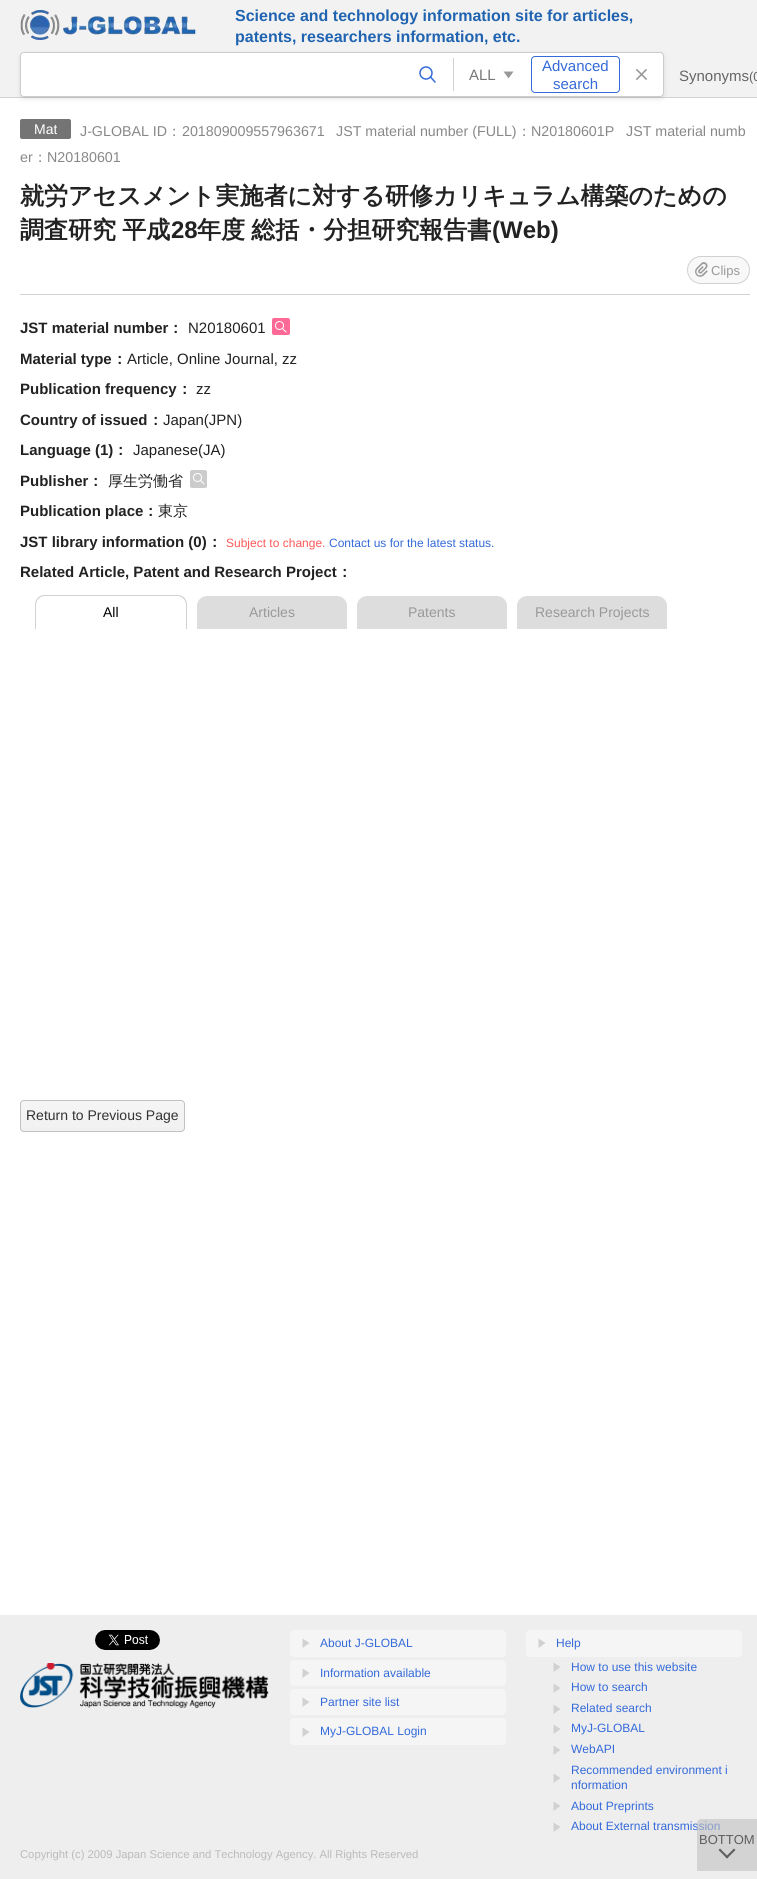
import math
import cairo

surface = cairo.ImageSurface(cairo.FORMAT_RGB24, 757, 1879)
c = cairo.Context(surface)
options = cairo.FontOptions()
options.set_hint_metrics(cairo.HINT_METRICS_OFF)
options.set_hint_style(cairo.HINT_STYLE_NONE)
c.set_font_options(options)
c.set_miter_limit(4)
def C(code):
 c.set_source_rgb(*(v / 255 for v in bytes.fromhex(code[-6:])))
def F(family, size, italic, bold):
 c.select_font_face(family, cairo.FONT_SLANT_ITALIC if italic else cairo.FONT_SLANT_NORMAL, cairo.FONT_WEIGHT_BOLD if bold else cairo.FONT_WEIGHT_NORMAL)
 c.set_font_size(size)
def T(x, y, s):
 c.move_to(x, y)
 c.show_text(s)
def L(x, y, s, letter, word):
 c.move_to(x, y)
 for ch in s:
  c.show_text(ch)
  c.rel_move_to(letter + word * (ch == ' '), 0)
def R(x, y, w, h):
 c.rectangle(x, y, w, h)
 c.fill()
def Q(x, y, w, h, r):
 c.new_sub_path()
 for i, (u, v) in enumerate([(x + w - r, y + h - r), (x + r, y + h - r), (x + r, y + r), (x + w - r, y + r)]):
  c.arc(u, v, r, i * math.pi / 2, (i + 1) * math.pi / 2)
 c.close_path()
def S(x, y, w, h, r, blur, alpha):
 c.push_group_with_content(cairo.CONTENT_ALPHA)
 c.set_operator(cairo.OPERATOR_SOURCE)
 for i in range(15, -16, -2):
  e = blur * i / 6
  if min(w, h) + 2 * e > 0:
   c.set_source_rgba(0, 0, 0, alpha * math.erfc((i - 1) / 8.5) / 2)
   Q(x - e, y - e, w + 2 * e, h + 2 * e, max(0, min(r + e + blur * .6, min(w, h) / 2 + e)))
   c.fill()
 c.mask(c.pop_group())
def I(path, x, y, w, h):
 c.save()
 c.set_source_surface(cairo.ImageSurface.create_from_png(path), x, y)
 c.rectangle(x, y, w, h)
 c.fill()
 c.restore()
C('ffffff')
c.paint()
C('f2f2f2')
R(0,0,757,97)
I('1.png',20,10,176,30)
F('Liberation Sans',16,0,1)
C('2064b1')
T(235,21,'Science and technology information site for articles,')
T(235,42,'patents, researchers information, etc.')
C('d1d1d1')
R(0,97,757,1)
C('000000')
S(20,54,644,45,4,2.5,.1)
C('ffffff')
Q(20.5,52.5,643,44,3.5)
c.fill_preserve()
C('cccccc')
c.set_line_width(1)
c.stroke()
c.save()
Q(21,53,642,43,3)
c.clip()
C('ffffff')
Q(21,53,382,43,4)
c.fill()
c.restore()
c.arc(426,73,6,0,2 * math.pi)
C('346ad9')
c.set_line_width(1.5)
c.stroke()
c.new_path()
c.move_to(430.5,77)
c.line_to(435,82)
c.set_line_cap(cairo.LINE_CAP_ROUND)
c.set_line_join(cairo.LINE_JOIN_ROUND)
c.stroke()
C('999999')
c.new_path()
c.move_to(513.5,71.5)
c.line_to(508.5,78.5)
c.line_to(503.5,71.5)
c.close_path()
c.fill()
C('d1d1d1')
R(453,58,1,33)
F('Liberation Sans',15,0,0)
C('777777')
T(469,80,'ALL')
Q(531.5,56.5,88,36,3.5)
C('346ad9')
c.set_line_width(1)
c.set_line_cap(cairo.LINE_CAP_BUTT)
c.set_line_join(cairo.LINE_JOIN_MITER)
c.stroke()
T(542,71,'Advanced')
T(553,89,'search')
I('2.png',636,69,11,11)
C('666666')
T(679,81,'Synonyms')
F('Liberation Sans',13,0,0)
T(749,81,'(0')
C('d1d1d1')
R(20,294,730,1)
C('747474')
Q(20,119,51,20,2)
c.fill()
F('Liberation Sans',14,0,0)
C('ffffff')
T(34,134,'Mat')
F('Liberation Sans',14.25,0,0)
C('888888')
T(80,136,'J-GLOBAL ID')
F('WenQuanYi Zen Hei Medium',14.25,0,0)
T(167,136,'：')
F('Liberation Sans',14.25,0,0)
T(182,136,'201809009557963671')
T(336,136,'JST material number (FULL)')
F('WenQuanYi Zen Hei Medium',14.25,0,0)
T(517,136,'：')
F('Liberation Sans',14.25,0,0)
T(531,136,'N20180601P')
T(626,136,'JST material numb')
T(20,162,'er')
F('WenQuanYi Zen Hei Medium',14.25,0,0)
T(33,162,'：')
F('Liberation Sans',14.25,0,0)
T(47,162,'N20180601')
F('WenQuanYi Zen Hei',24,0,1)
C('222222')
T(20,204,'就労アセスメント実施者に対する研修カリキュラム構築のための')
L(20,238,'調査研究 平成',0,-1)
F('Liberation Sans',24,0,1)
T(171,238,'28')
F('WenQuanYi Zen Hei',24,0,1)
L(197,238,'年度 総括・分担研究報告書',0,-1)
F('Liberation Sans',24,0,1)
T(492,238,'(Web)')
C('f8f8f8')
Q(687,256,63,28,14)
c.fill()
I('3.png',695,262,13,15)
Q(687.5,256.5,62,27,13.5)
C('d1d1d1')
c.stroke()
F('Liberation Sans',13,0,0)
C('999999')
T(711,275,'Clips')
F('Liberation Sans',15,0,1)
C('222222')
T(20,333,'JST material number')
F('WenQuanYi Zen Hei',15,0,1)
T(168,333,'：')
F('Liberation Sans',15,0,0)
T(188,333,'N20180601')
C('ff6997')
Q(272,318,18,17,2)
c.fill()
c.arc(279.5,325.5,4,0,2 * math.pi)
C('ffffff')
c.stroke()
c.new_path()
c.move_to(282.5,328.5)
c.line_to(286,332)
c.set_line_cap(cairo.LINE_CAP_ROUND)
c.set_line_join(cairo.LINE_JOIN_ROUND)
c.stroke()
F('Liberation Sans',15,0,1)
C('222222')
T(20,364,'Material type')
F('WenQuanYi Zen Hei',15,0,1)
T(112,364,'：')
F('Liberation Sans',15,0,0)
T(127,364,'Article, Online Journal, zz')
F('Liberation Sans',15,0,1)
T(20,394,'Publication frequency')
F('WenQuanYi Zen Hei',15,0,1)
T(177,394,'：')
F('Liberation Sans',15,0,0)
T(196,394,'zz')
F('Liberation Sans',15,0,1)
T(20,425,'Country of issued')
F('WenQuanYi Zen Hei',15,0,1)
T(148,425,'：')
F('Liberation Sans',15,0,0)
T(163,425,'Japan(JPN)')
F('Liberation Sans',15,0,1)
T(20,455,'Language (1)')
F('WenQuanYi Zen Hei',15,0,1)
T(113,455,'：')
F('Liberation Sans',15,0,0)
T(133,455,'Japanese(JA)')
F('Liberation Sans',15,0,1)
T(20,486,'Publisher')
F('WenQuanYi Zen Hei',15,0,1)
T(88,486,'：')
F('WenQuanYi Zen Hei Medium',15,0,0)
T(108,486,'厚生労働省')
C('cccccc')
Q(190,470,17,18,2)
c.fill()
c.arc(197.5,477.5,4,0,2 * math.pi)
C('ffffff')
c.set_line_cap(cairo.LINE_CAP_BUTT)
c.set_line_join(cairo.LINE_JOIN_MITER)
c.stroke()
c.new_path()
c.move_to(200.5,480.5)
c.line_to(204,484)
c.set_line_cap(cairo.LINE_CAP_ROUND)
c.set_line_join(cairo.LINE_JOIN_ROUND)
c.stroke()
F('Liberation Sans',15,0,1)
C('222222')
T(20,516,'Publication place')
F('WenQuanYi Zen Hei',15,0,1)
T(143,516,'：')
F('WenQuanYi Zen Hei Medium',15,0,0)
T(158,516,'東京')
F('Liberation Sans',15,0,1)
T(20,547,'JST library information (0)')
F('WenQuanYi Zen Hei',15,0,1)
T(207,547,'：')
F('Liberation Sans',12,0,0)
C('ff5858')
T(226,547,'Subject to change.')
C('346ad9')
T(329,547,'Contact us for the latest status.')
F('Liberation Sans',15,0,1)
C('222222')
T(20,577,'Related Article, Patent and Research Project')
F('WenQuanYi Zen Hei',15,0,1)
T(337,577,'：')
C('d1d1d1')
c.set_fill_rule(cairo.FILL_RULE_EVEN_ODD)
c.new_path()
c.move_to(45,595)
c.line_to(177,595)
c.curve_to(183,595,187,599,187,605)
c.line_to(187,629)
c.line_to(35,629)
c.line_to(35,605)
c.curve_to(35,599,39,595,45,595)
c.close_path()
c.move_to(45,596)
c.line_to(177,596)
c.curve_to(182,596,186,600,186,605)
c.line_to(186,629)
c.line_to(36,629)
c.line_to(36,605)
c.curve_to(36,600,40,596,45,596)
c.close_path()
c.fill()
F('Liberation Sans',14,0,0)
C('000000')
T(103,617,'All')
C('dddddd')
c.new_path()
c.move_to(207,596)
c.line_to(337,596)
c.curve_to(342.5,596,347,600.5,347,606)
c.line_to(347,629)
c.line_to(197,629)
c.line_to(197,606)
c.curve_to(197,600.5,201.5,596,207,596)
c.close_path()
c.fill()
C('999999')
T(249,617,'Articles')
C('dddddd')
c.new_path()
c.move_to(367,596)
c.line_to(497,596)
c.curve_to(502.5,596,507,600.5,507,606)
c.line_to(507,629)
c.line_to(357,629)
c.line_to(357,606)
c.curve_to(357,600.5,361.5,596,367,596)
c.close_path()
c.fill()
C('999999')
T(408,617,'Patents')
C('dddddd')
c.new_path()
c.move_to(527,596)
c.line_to(657,596)
c.curve_to(662.5,596,667,600.5,667,606)
c.line_to(667,629)
c.line_to(517,629)
c.line_to(517,606)
c.curve_to(517,600.5,521.5,596,527,596)
c.close_path()
c.fill()
C('999999')
T(535,617,'Research Projects')
c.save()
c.set_fill_rule(cairo.FILL_RULE_WINDING)
Q(20,1100,165,32,4)
c.clip()
gradient = cairo.LinearGradient(103,1101,103,1131)
gradient.add_color_stop_rgba(0,0.961,0.961,0.961,1)
gradient.add_color_stop_rgba(1,0.945,0.945,0.945,1)
c.set_source(gradient)
R(20,1101,165,30)
c.restore()
Q(20.5,1100.5,164,31,3.5)
C('c2c2c2')
c.set_line_cap(cairo.LINE_CAP_BUTT)
c.set_line_join(cairo.LINE_JOIN_MITER)
c.stroke()
C('333333')
T(26,1120,'Return to Previous Page')
C('eeeeee')
R(0,1615,757,264)
I('4.png',95,1630,65,20)
I('5.png',20,1663,249,45)
C('f5f5f5')
Q(290,1630,216,27,4)
c.fill()
C('d1d1d1')
c.set_fill_rule(cairo.FILL_RULE_WINDING)
c.new_path()
c.move_to(302.5,1638.5)
c.line_to(309.5,1643)
c.line_to(302.5,1648)
c.close_path()
c.fill()
F('Liberation Sans',12,0,0)
C('346ad9')
T(320,1647,'About J-GLOBAL')
C('f5f5f5')
Q(290,1660,216,26,4)
c.fill()
C('d1d1d1')
c.new_path()
c.move_to(302.5,1668.5)
c.line_to(309.5,1673)
c.line_to(302.5,1678)
c.close_path()
c.fill()
C('346ad9')
T(320,1677,'Information available')
C('f5f5f5')
Q(290,1689,216,26,4)
c.fill()
C('d1d1d1')
c.new_path()
c.move_to(302.5,1697.5)
c.line_to(309.5,1702)
c.line_to(302.5,1707)
c.close_path()
c.fill()
C('346ad9')
T(320,1706,'Partner site list')
C('f5f5f5')
Q(290,1718,216,27,4)
c.fill()
C('d1d1d1')
c.new_path()
c.move_to(302.5,1727.5)
c.line_to(309.5,1732)
c.line_to(302.5,1737)
c.close_path()
c.fill()
C('346ad9')
T(320,1735,'MyJ-GLOBAL Login')
C('f5f5f5')
Q(526,1630,216,27,4)
c.fill()
C('d1d1d1')
c.new_path()
c.move_to(538.5,1638.5)
c.line_to(545.5,1643)
c.line_to(538.5,1648)
c.close_path()
c.move_to(553.5,1662.5)
c.line_to(560.5,1667)
c.line_to(553.5,1672)
c.close_path()
c.move_to(553.5,1683.5)
c.line_to(560.5,1688)
c.line_to(553.5,1693)
c.close_path()
c.fill()
C('346ad9')
T(556,1647,'Help')
T(571,1671,'How to use this website')
T(571,1691,'How to search')
C('d1d1d1')
c.new_path()
c.move_to(553.5,1704.5)
c.line_to(560.5,1709)
c.line_to(553.5,1714)
c.close_path()
c.move_to(553.5,1724.5)
c.line_to(560.5,1729)
c.line_to(553.5,1734)
c.close_path()
c.move_to(553.5,1745.5)
c.line_to(560.5,1750)
c.line_to(553.5,1755)
c.close_path()
c.fill()
C('346ad9')
T(571,1712,'Related search')
T(571,1732,'MyJ-GLOBAL')
T(571,1753,'WebAPI')
C('d1d1d1')
c.new_path()
c.move_to(553.5,1773.5)
c.line_to(560.5,1778)
c.line_to(553.5,1783)
c.close_path()
c.move_to(553.5,1801.5)
c.line_to(560.5,1806)
c.line_to(553.5,1811)
c.close_path()
c.move_to(553.5,1822.5)
c.line_to(560.5,1827)
c.line_to(553.5,1832)
c.close_path()
c.fill()
C('346ad9')
T(571,1774,'Recommended environment i')
T(571,1789,'nformation')
T(571,1810,'About Preprints')
T(571,1830,'About External transmission')
F('Liberation Sans',11.25,0,0)
C('bbbbbb')
T(20,1858,'Copyright (c) 2009 Japan Science and Technology Agency. All Rights Reserved')
c.set_source_rgba(0.761,0.761,0.761,0.6)
c.new_path()
c.move_to(701,1819)
c.line_to(757,1819)
c.line_to(757,1871)
c.line_to(697,1871)
c.line_to(697,1823)
c.curve_to(697,1821,699,1819,701,1819)
c.close_path()
c.fill()
F('Liberation Sans',13,0,0)
C('5f5f5f')
T(699,1844,'BOTTOM')
c.new_path()
c.move_to(725.5,1857)
c.line_to(734,1848.5)
c.line_to(735.5,1850)
c.line_to(727,1858.5)
c.close_path()
c.fill()
c.new_path()
c.move_to(718.5,1850)
c.line_to(720,1848.5)
c.line_to(728.5,1857)
c.line_to(727,1858.5)
c.close_path()
c.fill()
surface.write_to_png('o.png')
